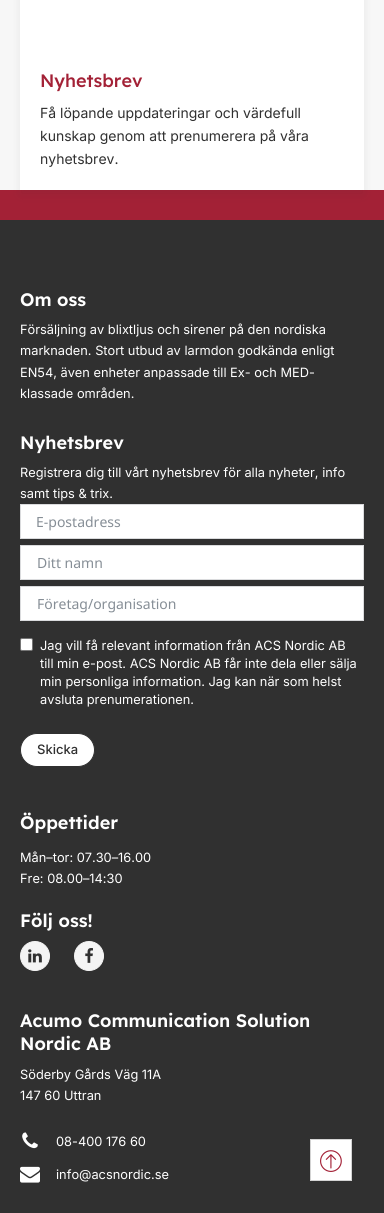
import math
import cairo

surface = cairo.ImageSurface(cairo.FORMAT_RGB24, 384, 1213)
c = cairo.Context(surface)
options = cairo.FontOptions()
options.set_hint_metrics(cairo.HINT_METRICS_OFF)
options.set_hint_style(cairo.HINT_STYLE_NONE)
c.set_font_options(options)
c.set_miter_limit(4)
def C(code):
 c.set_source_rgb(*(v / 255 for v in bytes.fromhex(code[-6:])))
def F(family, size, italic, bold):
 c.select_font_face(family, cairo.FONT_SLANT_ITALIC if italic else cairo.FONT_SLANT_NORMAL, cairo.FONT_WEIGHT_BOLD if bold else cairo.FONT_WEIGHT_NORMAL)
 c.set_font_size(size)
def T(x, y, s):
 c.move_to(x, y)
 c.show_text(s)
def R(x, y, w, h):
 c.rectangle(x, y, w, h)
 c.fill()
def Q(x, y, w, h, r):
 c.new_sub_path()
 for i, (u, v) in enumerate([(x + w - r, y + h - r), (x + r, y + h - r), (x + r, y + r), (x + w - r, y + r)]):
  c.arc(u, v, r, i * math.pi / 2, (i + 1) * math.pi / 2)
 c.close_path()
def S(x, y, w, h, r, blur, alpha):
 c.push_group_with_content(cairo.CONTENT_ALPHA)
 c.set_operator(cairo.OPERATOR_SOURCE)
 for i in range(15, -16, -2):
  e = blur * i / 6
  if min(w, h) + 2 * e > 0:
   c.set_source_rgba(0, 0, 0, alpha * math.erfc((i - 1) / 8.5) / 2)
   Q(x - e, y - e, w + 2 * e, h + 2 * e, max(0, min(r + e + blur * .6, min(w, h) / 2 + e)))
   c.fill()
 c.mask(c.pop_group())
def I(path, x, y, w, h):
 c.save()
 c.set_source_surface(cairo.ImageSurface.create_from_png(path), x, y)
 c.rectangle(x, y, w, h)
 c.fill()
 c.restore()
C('303030')
c.paint()
C('f7f7f7')
R(0,0,384,190)
C('a32136')
R(0,190,384,30)
C('303030')
S(20,-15,344,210,0,5,.08)
C('ffffff')
R(20,0,344,190)
F('Lexend Medium',18,0,0)
C('a32136')
T(40,87,'Nyhetsbrev')
F('Inter',14,0,0)
C('303030')
T(40,118,'Få löpande uppdateringar och värdefull')
T(40,141,'kunskap genom att prenumerera på våra')
T(40,164,'nyhetsbrev.')
F('Lexend SemiBold',18,0,0)
C('ffffff')
T(20,306,'Om oss')
F('Inter',12.8,0,0)
T(20,334,'Försäljning av blixtljus och sirener på den nordiska')
T(20,355,'marknaden. Stort utbud av larmdon godkända enligt')
T(20,377,'EN54, även enheter anpassade till Ex- och MED-')
T(20,398,'klassade områden.')
F('Lexend SemiBold',18,0,0)
T(20,449,'Nyhetsbrev')
F('Inter',12.8,0,0)
T(20,477,'Registrera dig till vårt nyhetsbrev för alla nyheter, info')
T(20,498,'samt tips & trix.')
c.rectangle(20.5,504.5,343,34)
c.fill_preserve()
C('dadbdd')
c.set_line_width(1)
c.stroke()
F('Noto Sans',14,0,0)
C('868e96')
T(36,527,'E-postadress')
C('ffffff')
c.rectangle(20.5,545.5,343,34)
c.fill_preserve()
C('dadbdd')
c.stroke()
C('868e96')
T(37,568,'Ditt namn')
C('ffffff')
c.rectangle(20.5,586.5,343,34)
c.fill_preserve()
C('dadbdd')
c.stroke()
C('868e96')
T(37,609,'Företag/organisation')
C('ffffff')
Q(20.5,638.5,12,12,1.5)
c.fill_preserve()
C('767676')
c.stroke()
F('Inter',12.8,0,0)
C('ffffff')
T(40,650,'Jag vill få relevant information från ACS Nordic AB')
T(40,668,'till min e-post. ACS Nordic AB får inte dela eller sälja')
T(40,686,'min personliga information. Jag kan när som helst')
T(40,704,'avsluta prenumerationen.')
Q(20.5,733.5,74,33,16.5)
c.fill_preserve()
C('303030')
c.stroke()
F('Inter Medium',13,0,0)
T(37,754,'Skicka')
F('Lexend SemiBold',18,0,0)
C('ffffff')
T(20,829,'Öppettider')
F('Inter',12.8,0,0)
T(20,862,'Mån–tor: 07.30–16.00')
T(20,883,'Fre: 08.00–14:30')
F('Lexend SemiBold',18,0,0)
T(20,927,'Följ oss!')
C('f4f4f4')
c.new_path()
c.arc(35,956,14.5,0,2 * math.pi)
c.fill_preserve()
c.stroke()
I('1.png',28,949,14,14)
c.arc(89,956,14.5,0,2 * math.pi)
c.fill_preserve()
c.stroke()
I('2.png',85,948,8,15)
C('ffffff')
T(20,1027,'Acumo Communication Solution')
T(20,1050,'Nordic AB')
F('Inter',12.8,0,0)
T(20,1079,'Söderby Gårds Väg 11A')
T(20,1100,'147 60 Uttran')
I('3.png',22,1132,16,17)
T(56,1146,'08-400 176 60')
I('4.png',20,1166,20,17)
T(56,1179,'info@acsnordic.se')
c.rectangle(310.5,1139.5,41,41)
c.fill_preserve()
C('d3d3d3')
c.stroke()
I('5.png',320,1150,22,22)
surface.write_to_png('o.png')
